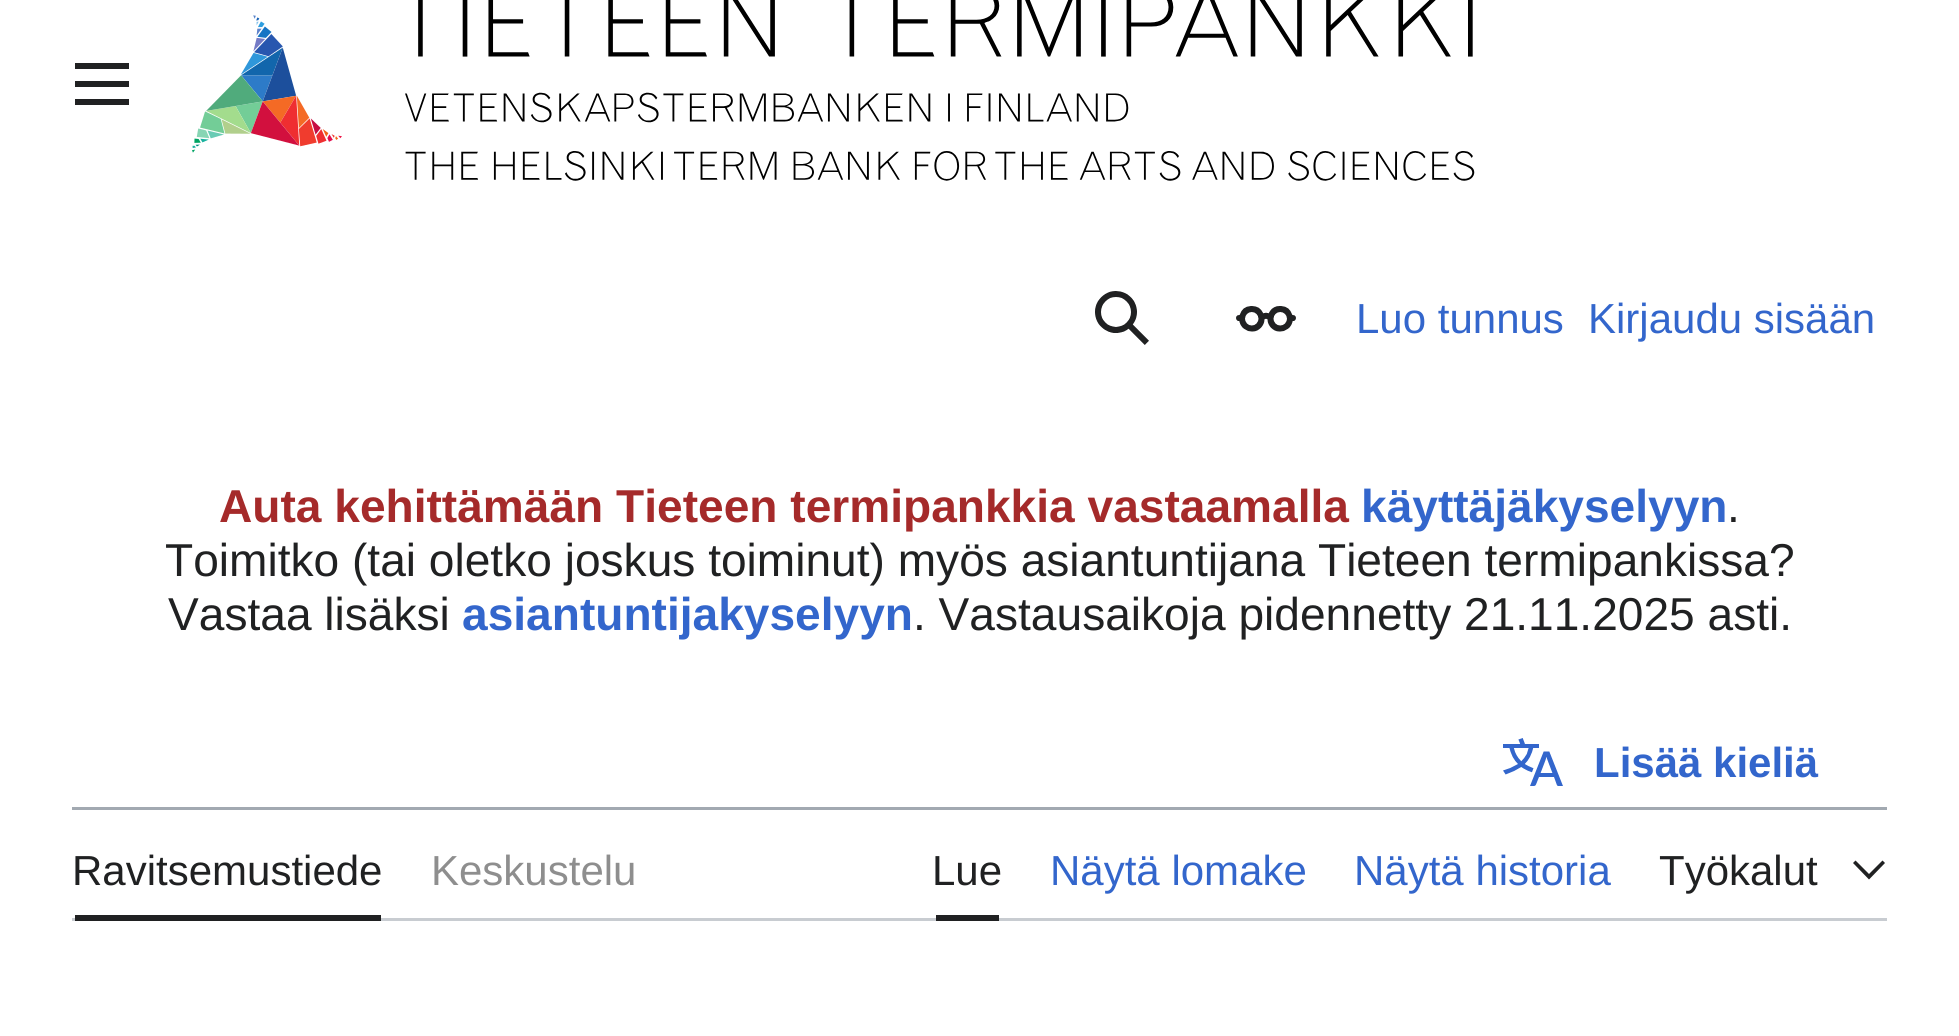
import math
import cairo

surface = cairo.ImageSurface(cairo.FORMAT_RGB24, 1959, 1036)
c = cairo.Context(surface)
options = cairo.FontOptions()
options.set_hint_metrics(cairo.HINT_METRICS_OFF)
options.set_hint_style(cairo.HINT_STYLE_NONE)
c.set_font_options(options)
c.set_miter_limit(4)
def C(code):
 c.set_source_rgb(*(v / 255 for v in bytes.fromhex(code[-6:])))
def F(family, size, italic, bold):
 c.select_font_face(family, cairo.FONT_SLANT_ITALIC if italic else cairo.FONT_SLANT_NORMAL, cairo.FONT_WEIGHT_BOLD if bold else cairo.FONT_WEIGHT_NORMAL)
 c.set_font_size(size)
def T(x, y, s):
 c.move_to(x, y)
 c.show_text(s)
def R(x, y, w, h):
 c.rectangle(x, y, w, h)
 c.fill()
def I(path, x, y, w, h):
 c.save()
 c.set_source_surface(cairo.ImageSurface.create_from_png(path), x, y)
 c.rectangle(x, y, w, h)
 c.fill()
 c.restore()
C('ffffff')
c.paint()
I('1.png',75,63,54,42)
I('2.png',192,15,150,138)
I('3.png',405,0,1070,181)
I('4.png',1095,291,54,54)
I('5.png',1236,306,60,26)
F('Liberation Sans',42,0,0)
C('3366cc')
T(1356,333,'Luo tunnus')
T(1588,333,'Kirjaudu sisään')
F('Liberation Sans',46.1,0,1)
C('a52a2a')
T(219,522,'Auta kehittämään Tieteen termipankkia vastaamalla')
C('3366cc')
T(1361,522,'käyttäjäkyselyyn')
F('Liberation Sans',46.1,0,0)
C('202122')
T(1727,522,'.')
T(165,576,'Toimitko (tai oletko joskus toiminut) myös asiantuntijana Tieteen termipankissa?')
T(168,630,'Vastaa lisäksi')
F('Liberation Sans',46.1,0,1)
C('3366cc')
T(462,630,'asiantuntijakyselyyn')
F('Liberation Sans',46.1,0,0)
C('202122')
T(913,630,'. Vastausaikoja pidennetty 21.11.2025 asti.')
I('6.png',1503,738,60,48)
F('Liberation Sans',42,0,1)
C('3366cc')
T(1594,777,'Lisää kieliä')
C('a2a9b1')
R(72,807,1815,3)
C('c8ccd1')
R(72,918,1815,3)
C('202122')
R(75,915,306,6)
F('Liberation Sans',42,0,0)
T(72,885,'Ravitsemustiede')
C('8e8e8e')
T(431,885,'Keskustelu')
C('202122')
R(936,915,63,6)
T(932,885,'Lue')
C('3366cc')
T(1050,885,'Näytä lomake')
T(1354,885,'Näytä historia')
C('202122')
T(1659,885,'Työkalut')
c.new_path()
c.move_to(1882.5,860.5)
c.line_to(1869,874)
c.line_to(1855.5,860.5)
c.line_to(1853,863)
c.line_to(1869,879.5)
c.line_to(1885,863)
c.close_path()
c.fill()
surface.write_to_png('o.png')
